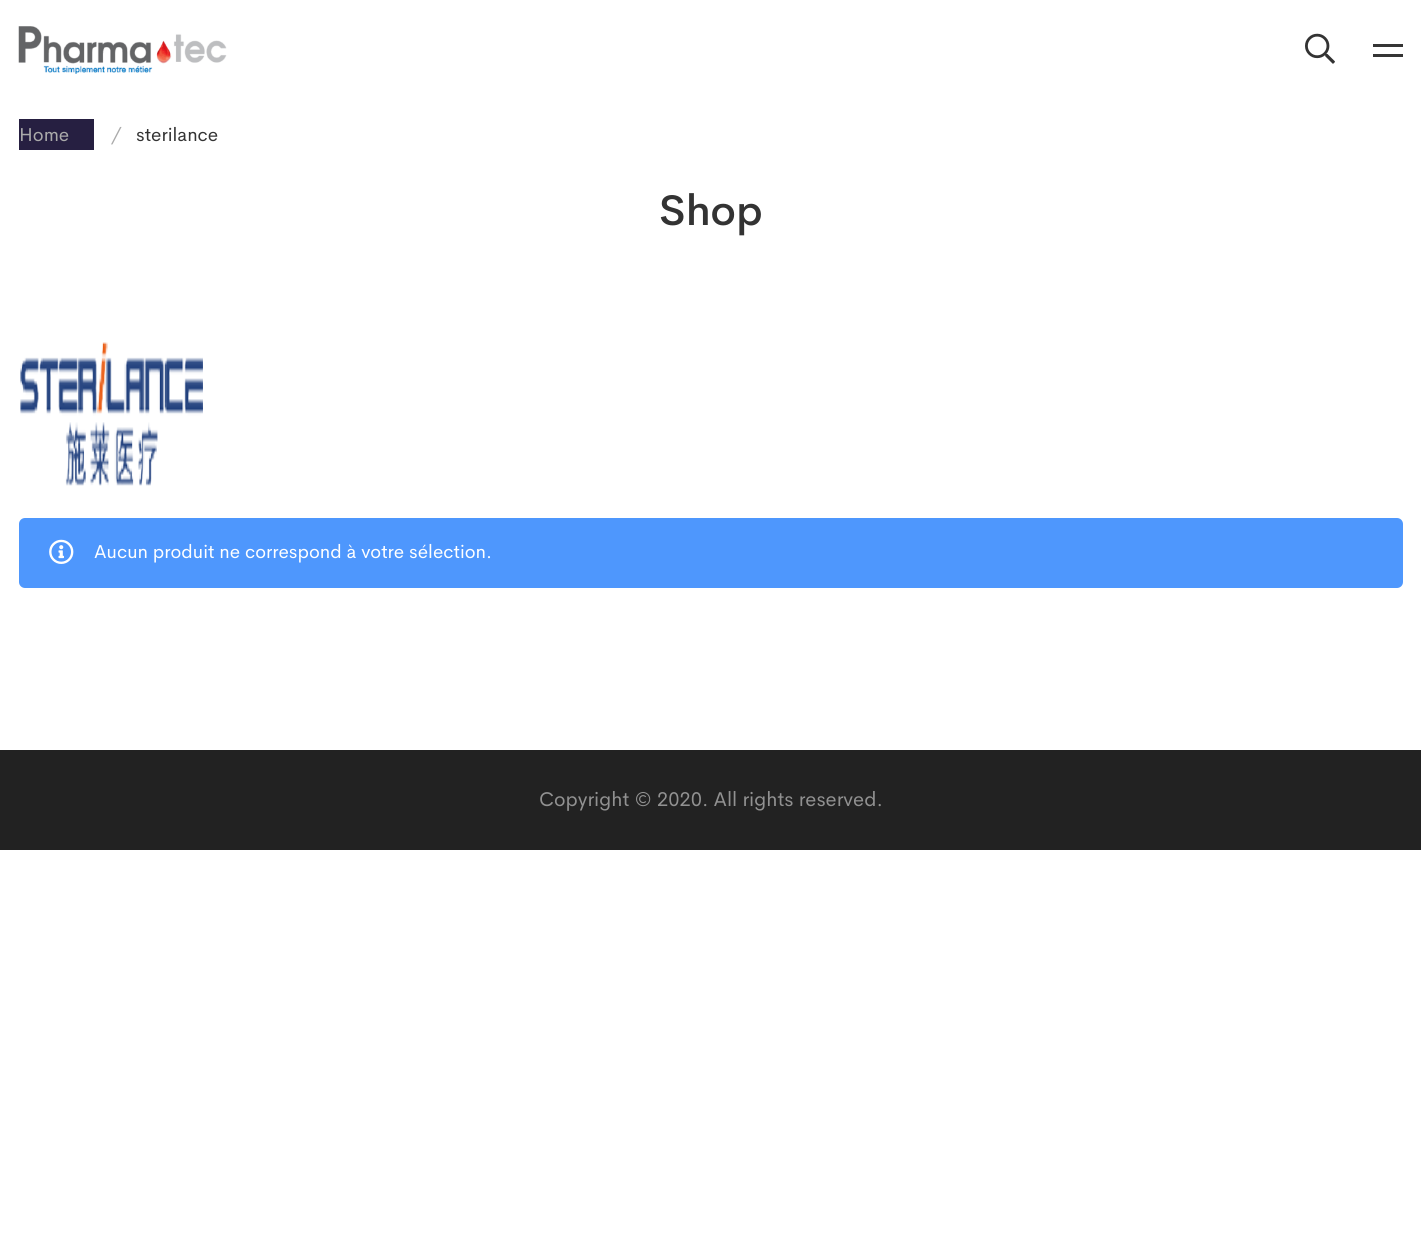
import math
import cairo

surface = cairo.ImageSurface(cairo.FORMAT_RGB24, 1421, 1250)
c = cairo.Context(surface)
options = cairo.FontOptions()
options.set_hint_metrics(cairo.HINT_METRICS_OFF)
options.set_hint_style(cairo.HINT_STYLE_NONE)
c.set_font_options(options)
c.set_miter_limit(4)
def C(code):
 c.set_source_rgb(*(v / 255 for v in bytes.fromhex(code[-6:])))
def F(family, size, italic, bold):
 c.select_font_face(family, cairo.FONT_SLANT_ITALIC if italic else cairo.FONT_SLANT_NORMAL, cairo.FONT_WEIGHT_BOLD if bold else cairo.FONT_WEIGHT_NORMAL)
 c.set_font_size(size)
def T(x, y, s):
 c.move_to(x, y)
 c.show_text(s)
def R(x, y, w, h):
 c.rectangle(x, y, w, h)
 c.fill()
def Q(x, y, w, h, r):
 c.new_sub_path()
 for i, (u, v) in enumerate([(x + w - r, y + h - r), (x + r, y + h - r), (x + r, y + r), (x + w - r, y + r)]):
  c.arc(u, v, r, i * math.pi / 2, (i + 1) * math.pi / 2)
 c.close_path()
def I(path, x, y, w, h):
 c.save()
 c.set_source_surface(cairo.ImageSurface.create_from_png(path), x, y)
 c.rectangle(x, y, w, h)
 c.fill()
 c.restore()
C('ffffff')
c.paint()
I('1.png',18,26,209,48)
I('2.png',1305,33,30,31)
C('353535')
R(1373,44,30,3)
R(1373,54,30,3)
C('261f41')
R(19,119,75,31)
F('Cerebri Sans',18.75,0,0)
C('ababab')
T(19,141,'Home')
T(111,141,'/')
C('333333')
T(136,141,'sterilance')
F('Cerebri Sans Medium',42.5,0,0)
T(659,225,'Shop')
I('3.png',20,342,183,144)
C('4e97fd')
Q(19,518,1384,70,6)
c.fill()
I('4.png',49,539,25,25)
F('Cerebri Sans',18.75,0,0)
C('ffffff')
T(94,558,'Aucun produit ne correspond à votre sélection.')
C('222222')
R(0,750,1421,100)
F('Cerebri Sans',20,0,0)
C('919191')
T(539,806,'Copyright © 2020. All rights reserved.')
surface.write_to_png('o.png')
